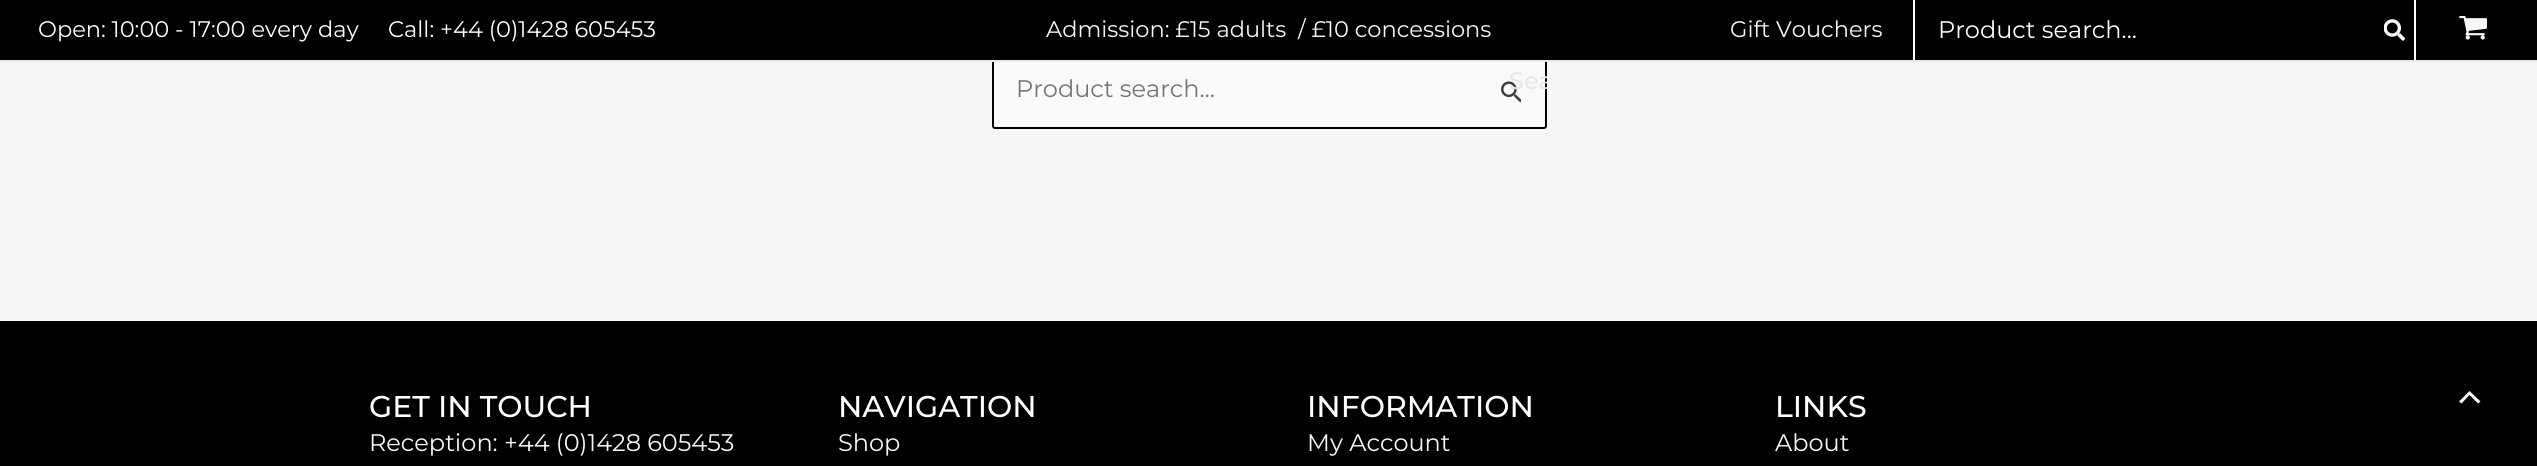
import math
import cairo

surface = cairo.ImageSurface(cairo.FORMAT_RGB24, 2537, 466)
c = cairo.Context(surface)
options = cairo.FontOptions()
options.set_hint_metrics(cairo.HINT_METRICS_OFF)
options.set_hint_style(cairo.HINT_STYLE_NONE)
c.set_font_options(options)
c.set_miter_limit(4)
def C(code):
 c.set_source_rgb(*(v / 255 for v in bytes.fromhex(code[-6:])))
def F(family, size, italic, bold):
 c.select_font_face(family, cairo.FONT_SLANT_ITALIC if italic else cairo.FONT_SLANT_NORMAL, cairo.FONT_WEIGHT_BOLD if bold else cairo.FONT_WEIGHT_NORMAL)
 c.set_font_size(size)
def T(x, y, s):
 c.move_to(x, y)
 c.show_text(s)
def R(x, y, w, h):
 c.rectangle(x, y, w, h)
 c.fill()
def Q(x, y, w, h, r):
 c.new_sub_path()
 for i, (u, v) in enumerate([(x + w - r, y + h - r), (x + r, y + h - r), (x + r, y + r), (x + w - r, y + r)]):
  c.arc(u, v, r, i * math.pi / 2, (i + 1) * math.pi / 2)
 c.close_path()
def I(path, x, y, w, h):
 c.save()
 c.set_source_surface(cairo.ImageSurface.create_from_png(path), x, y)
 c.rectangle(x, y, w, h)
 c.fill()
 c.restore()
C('f7f7f7')
c.paint()
C('fafafa')
Q(993,52,553,76,2)
c.fill_preserve()
C('000000')
c.stroke()
R(0,0,2537,60)
C('e2e8f0')
R(0,60,2537,2)
F('Montserrat',22.5,0,0)
C('ffffff')
T(38,37,'Open: 10:00 - 17:00 every day     Call: +44 (0)1428 605453')
C('f7f7f7')
T(1046,37,'Admission: £15 adults  / £10 concessions')
T(1730,37,'Gift Vouchers')
C('ffffff')
R(2414,0,2,60)
R(1913,0,2,60)
F('Montserrat',24,0,0)
T(1938,38,'Product search...')
I('1.png',2384,19,21,22)
I('2.png',2459,16,29,24)
C('757575')
T(1016,97,'Product search...')
I('3.png',1501,81,20,22)
c.save()
Q(1479,51,68,63,3)
c.clip()
F('Montserrat Medium',24,0,0)
C('e7e7e7')
T(1509,89,'Sea')
c.restore()
C('000000')
R(0,321,2537,145)
F('Montserrat Medium',30,0,0)
C('ffffff')
T(369,417,'GET IN TOUCH')
F('Montserrat',24,0,0)
C('f7f7f7')
T(369,451,'Reception: +44 (0)1428 605453')
F('Montserrat Medium',30,0,0)
C('ffffff')
T(838,417,'NAVIGATION')
F('Montserrat',24,0,0)
C('f7f7f7')
T(838,451,'Shop')
F('Montserrat Medium',30,0,0)
C('ffffff')
T(1307,417,'INFORMATION')
F('Montserrat',24,0,0)
C('f7f7f7')
T(1307,451,'My Account')
F('Montserrat Medium',30,0,0)
C('ffffff')
T(1775,417,'LINKS')
F('Montserrat',24,0,0)
C('f7f7f7')
T(1775,451,'About')
C('ffffff')
c.new_path()
c.move_to(2480.5,401.5)
c.line_to(2469.5,391)
c.line_to(2459,401.5)
c.line_to(2461.5,403.5)
c.line_to(2469.5,395)
c.line_to(2478,403.5)
c.close_path()
c.fill()
surface.write_to_png('o.png')
